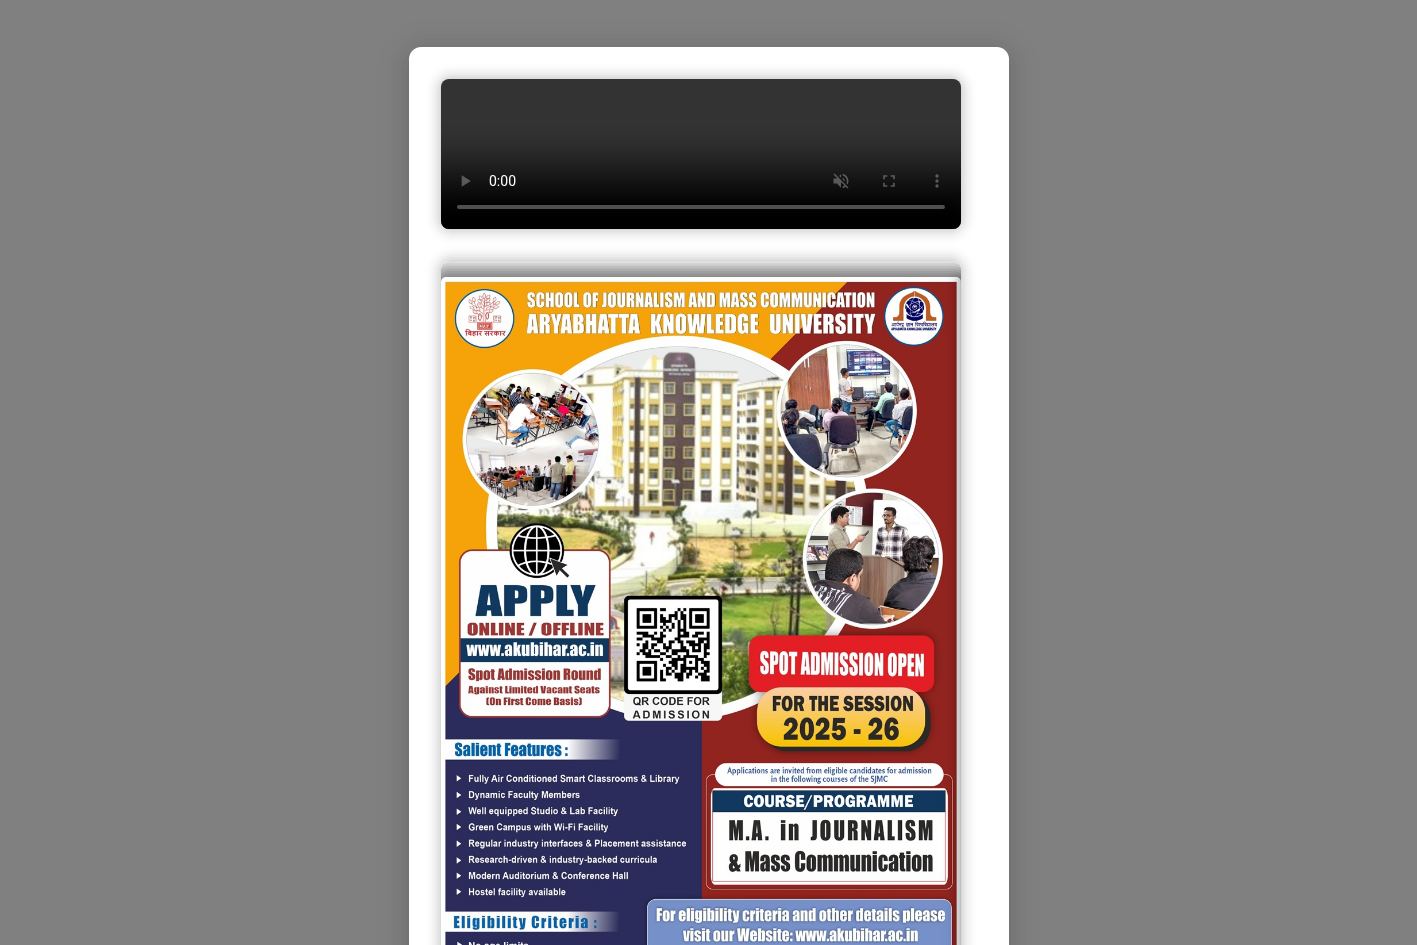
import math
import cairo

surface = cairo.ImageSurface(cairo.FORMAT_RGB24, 1417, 945)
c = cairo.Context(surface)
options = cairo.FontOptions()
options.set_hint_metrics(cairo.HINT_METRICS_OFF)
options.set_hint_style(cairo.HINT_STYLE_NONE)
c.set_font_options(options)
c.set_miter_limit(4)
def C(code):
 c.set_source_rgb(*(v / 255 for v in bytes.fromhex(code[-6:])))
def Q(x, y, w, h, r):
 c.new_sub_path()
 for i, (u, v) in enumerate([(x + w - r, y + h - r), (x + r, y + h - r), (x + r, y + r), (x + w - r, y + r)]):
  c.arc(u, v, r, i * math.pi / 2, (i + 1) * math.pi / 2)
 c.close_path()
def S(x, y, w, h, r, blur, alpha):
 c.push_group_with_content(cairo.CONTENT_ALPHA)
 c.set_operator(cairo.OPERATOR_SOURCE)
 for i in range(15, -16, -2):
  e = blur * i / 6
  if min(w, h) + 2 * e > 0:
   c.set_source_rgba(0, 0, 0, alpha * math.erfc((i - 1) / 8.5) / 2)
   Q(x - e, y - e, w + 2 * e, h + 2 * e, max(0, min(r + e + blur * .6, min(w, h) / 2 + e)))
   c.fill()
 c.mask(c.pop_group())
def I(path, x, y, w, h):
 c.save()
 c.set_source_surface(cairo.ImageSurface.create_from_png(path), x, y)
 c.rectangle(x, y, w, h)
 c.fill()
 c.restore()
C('808080')
c.paint()
C('000000')
S(409,51,600,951,12,15,.2)
C('ffffff')
c.new_path()
c.move_to(421,47)
c.line_to(997,47)
c.curve_to(1003.5,47,1009,52.5,1009,59)
c.line_to(1009,945)
c.line_to(409,945)
c.line_to(409,59)
c.curve_to(409,52.5,414.5,47,421,47)
c.close_path()
c.fill()
C('000000')
S(441,79,520,150,8,7.5,.3)
I('1.png',441,79,520,150)
c.save()
c.set_fill_rule(cairo.FILL_RULE_EVEN_ODD)
c.new_path()
c.move_to(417,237)
c.line_to(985,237)
c.line_to(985,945)
c.line_to(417,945)
c.close_path()
c.move_to(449,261)
c.line_to(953,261)
c.curve_to(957.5,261,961,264.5,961,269)
c.line_to(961,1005)
c.curve_to(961,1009.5,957.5,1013,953,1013)
c.line_to(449,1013)
c.curve_to(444.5,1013,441,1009.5,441,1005)
c.line_to(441,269)
c.curve_to(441,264.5,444.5,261,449,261)
c.close_path()
c.clip()
S(441,261,520,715,8,7.5,.3)
c.restore()
c.save()
Q(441,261,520,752,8)
c.clip()
S(431,267,540,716,15,7.5,.5)
c.restore()
I('2.png',441,277,520,668)
c.save()
Q(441,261,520,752,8)
c.clip()
S(961,267,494,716,15,7.5,.5)
c.restore()
surface.write_to_png('o.png')
